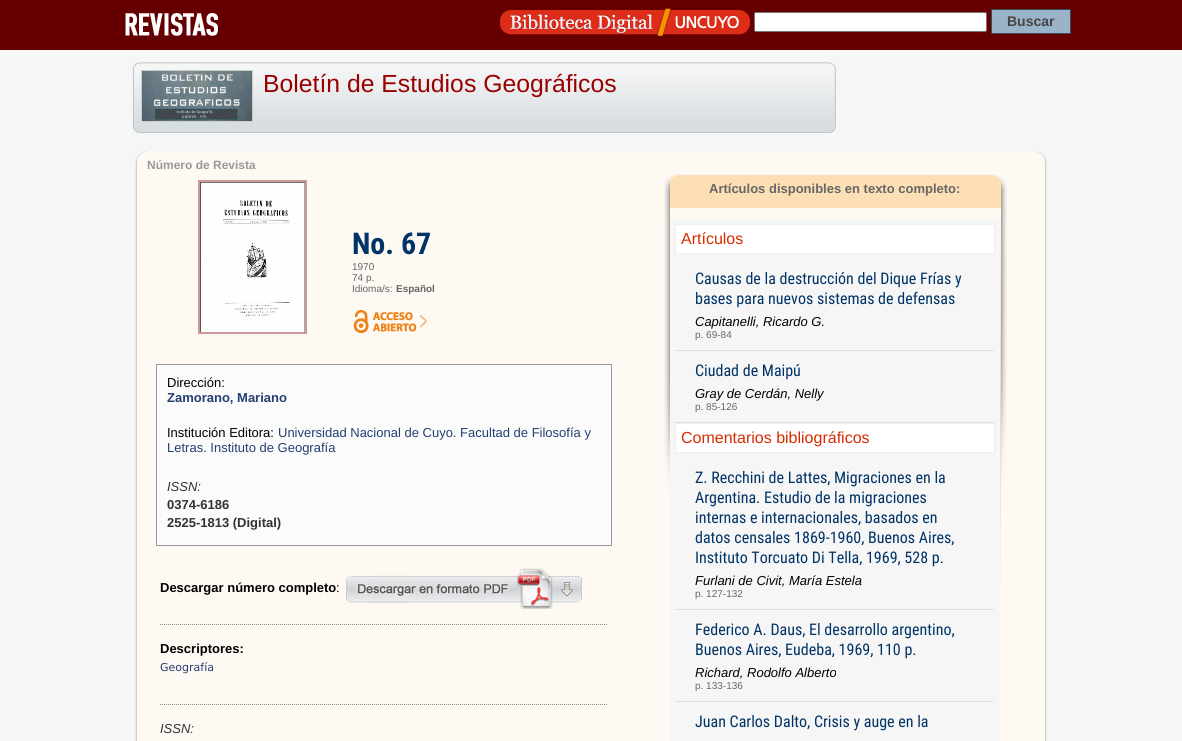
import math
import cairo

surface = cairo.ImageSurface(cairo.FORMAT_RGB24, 1182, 741)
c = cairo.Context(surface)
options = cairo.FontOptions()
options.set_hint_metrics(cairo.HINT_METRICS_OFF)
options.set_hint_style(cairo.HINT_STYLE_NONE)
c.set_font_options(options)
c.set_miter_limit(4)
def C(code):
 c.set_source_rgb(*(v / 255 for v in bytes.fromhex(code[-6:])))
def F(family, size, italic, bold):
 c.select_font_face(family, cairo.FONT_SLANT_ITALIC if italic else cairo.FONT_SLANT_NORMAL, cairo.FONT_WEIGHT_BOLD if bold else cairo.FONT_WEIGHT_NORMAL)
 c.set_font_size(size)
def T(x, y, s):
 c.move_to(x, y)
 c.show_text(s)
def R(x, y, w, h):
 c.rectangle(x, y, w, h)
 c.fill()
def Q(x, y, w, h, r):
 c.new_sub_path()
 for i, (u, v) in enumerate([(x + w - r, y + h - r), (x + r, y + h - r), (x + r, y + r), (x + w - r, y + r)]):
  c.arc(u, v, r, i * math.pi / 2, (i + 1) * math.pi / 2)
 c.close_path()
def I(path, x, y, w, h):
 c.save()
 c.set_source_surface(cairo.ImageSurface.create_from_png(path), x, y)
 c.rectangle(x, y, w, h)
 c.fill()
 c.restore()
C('f6f6f6')
c.paint()
C('660000')
R(0,0,1182,50)
I('1.png',125,13,93,23)
I('2.png',500,8,250,29)
C('ffffff')
Q(754.5,12.5,232,19,1.5)
c.fill_preserve()
C('767676')
c.set_line_width(1)
c.stroke()
C('99b3c8')
c.rectangle(991.5,9.5,79,24)
c.fill_preserve()
C('3a4d5a')
c.stroke()
F('Liberation Sans',14,0,1)
C('444444')
T(1007,26,'Buscar')
I('3.png',132,62,704,71)
c.rectangle(141.5,70.5,111,51)
C('cccccc')
c.stroke()
I('4.png',142,71,110,50)
F('Liberation Sans',24.75,0,0)
C('990000')
T(263,92,'Boletín de Estudios Geográficos')
I('5.png',135,151,12,21)
C('fef9f2')
R(147,151,888,590)
F('Liberation Sans',12,0,1)
C('999999')
T(147,169,'Número de Revista')
I('6.png',1035,151,12,21)
I('7.png',135,172,12,569)
c.rectangle(199,181,107,152)
C('cc9999')
c.set_line_width(2)
c.stroke()
I('8.png',200,182,105,150)
F('Roboto Condensed',30,0,1)
C('003366')
T(352,254,'No. 67')
F('Liberation Sans',10,0,0)
C('666666')
T(352,270,'1970')
T(352,281,'74 p.')
T(352,292,'Idioma/s:')
F('Liberation Sans',10,0,1)
T(396,292,'Español')
I('9.png',353,309,74,24)
I('10.png',664,174,343,429)
F('Liberation Sans',13,0,1)
T(709,193,'Artículos disponibles en texto completo:')
C('f6f6f6')
R(670,219,330,522)
C('ffffff')
c.rectangle(675.5,224.5,319,29)
c.fill_preserve()
C('efefef')
c.set_line_width(1)
c.stroke()
F('Liberation Sans',16,0,0)
C('d72b00')
T(681,244,'Artículos')
c.new_path()
c.move_to(675,350.5)
c.line_to(995,350.5)
C('cccccc')
c.set_dash([1,1])
c.stroke()
F('Roboto Condensed',16,0,0)
C('003366')
T(695,284,'Causas de la destrucción del Dique Frías y')
T(695,304,'bases para nuevos sistemas de defensas')
F('Liberation Sans',13,1,0)
C('000000')
T(695,326,'Capitanelli, Ricardo G.')
F('Liberation Sans',10,0,0)
C('666666')
T(695,338,'p. 69-84')
c.new_path()
c.move_to(675,422.5)
c.line_to(995,422.5)
C('cccccc')
c.stroke()
F('Roboto Condensed',16,0,0)
C('003366')
T(695,376,'Ciudad de Maipú')
F('Liberation Sans',13,1,0)
C('000000')
T(695,398,'Gray de Cerdán, Nelly')
F('Liberation Sans',10,0,0)
C('666666')
T(695,410,'p. 85-126')
C('ffffff')
c.rectangle(675.5,423.5,319,29)
c.fill_preserve()
C('efefef')
c.set_dash([])
c.stroke()
F('Liberation Sans',16,0,0)
C('d72b00')
T(681,443,'Comentarios bibliográficos')
c.new_path()
c.move_to(675,609.5)
c.line_to(995,609.5)
C('cccccc')
c.set_dash([1,1])
c.stroke()
F('Roboto Condensed',16,0,0)
C('003366')
T(695,483,'Z. Recchini de Lattes, Migraciones en la')
T(695,503,'Argentina. Estudio de la migraciones')
T(695,523,'internas e internacionales, basados en')
T(695,543,'datos censales 1869-1960, Buenos Aires,')
T(695,563,'Instituto Torcuato Di Tella, 1969, 528 p.')
F('Liberation Sans',13,1,0)
C('000000')
T(695,585,'Furlani de Civit, María Estela')
F('Liberation Sans',10,0,0)
C('666666')
T(695,597,'p. 127-132')
c.new_path()
c.move_to(675,701.5)
c.line_to(995,701.5)
C('cccccc')
c.stroke()
F('Roboto Condensed',16,0,0)
C('003366')
T(695,635,'Federico A. Daus, El desarrollo argentino,')
T(695,655,'Buenos Aires, Eudeba, 1969, 110 p.')
F('Liberation Sans',13,1,0)
C('000000')
T(695,677,'Richard, Rodolfo Alberto')
F('Liberation Sans',10,0,0)
C('666666')
T(695,689,'p. 133-136')
F('Roboto Condensed',16,0,0)
C('003366')
T(695,727,'Juan Carlos Dalto, Crisis y auge en la')
C('fbfbfb')
c.rectangle(156.5,364.5,455,181)
c.fill_preserve()
C('999999')
c.set_dash([])
c.stroke()
F('Liberation Sans',13,0,0)
C('000000')
T(167,387,'Dirección:')
F('Liberation Sans',13,0,1)
C('243f71')
T(167,402,'Zamorano, Mariano')
F('Liberation Sans',13,0,0)
C('000000')
T(167,437,'Institución Editora:')
C('243f71')
T(278,437,'Universidad Nacional de Cuyo. Facultad de Filosofía y')
T(167,452,'Letras. Instituto de Geografía')
F('Liberation Sans',13,1,0)
C('333333')
T(167,491,'ISSN:')
F('Liberation Sans',13,0,1)
T(167,509,'0374-6186')
T(167,527,'2525-1813 (Digital)')
C('000000')
T(160,592,'Descargar número completo')
F('Liberation Sans',13,0,0)
T(336,592,':')
I('11.png',345,568,238,41)
c.new_path()
c.move_to(160,624.5)
c.line_to(608,624.5)
C('8e8e8e')
c.set_dash([1,1])
c.stroke()
F('Liberation Sans',13,0,1)
C('000000')
T(160,653,'Descriptores:')
F('DejaVu Sans',11,0,0)
C('243f71')
T(160,671,'Geografía')
c.new_path()
c.move_to(160,704.5)
c.line_to(608,704.5)
C('8e8e8e')
c.stroke()
F('Liberation Sans',13,1,0)
C('333333')
T(160,733,'ISSN:')
I('12.png',1035,172,12,569)
surface.write_to_png('o.png')
